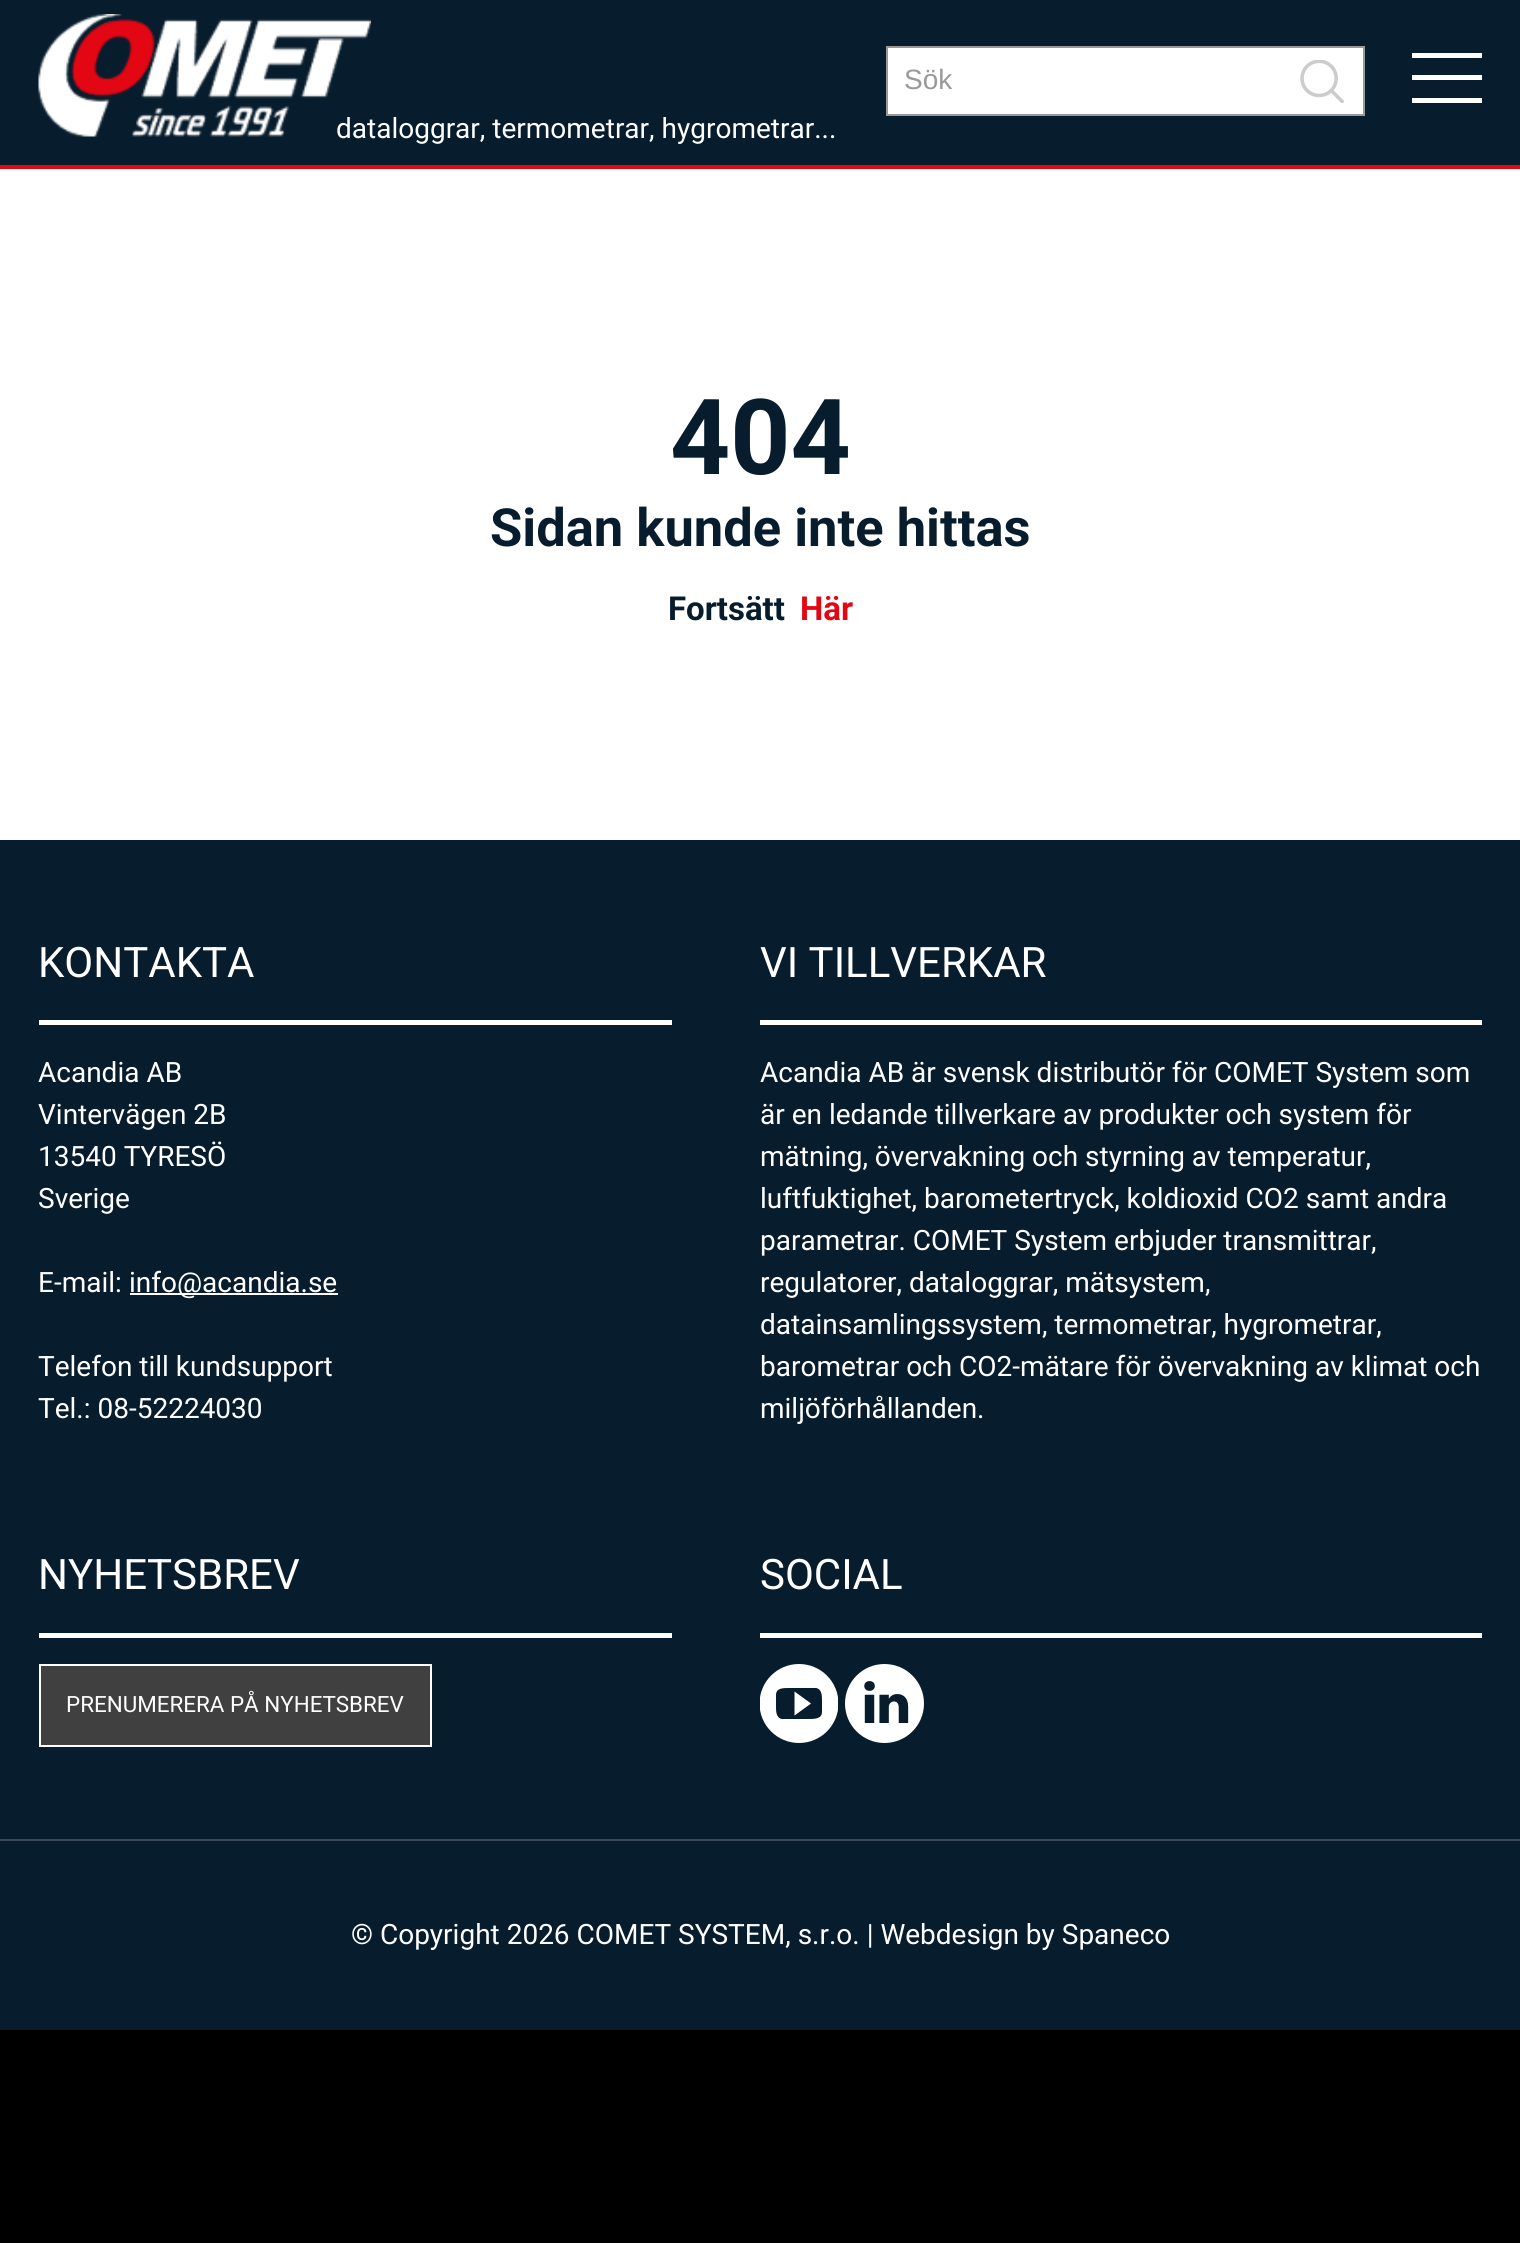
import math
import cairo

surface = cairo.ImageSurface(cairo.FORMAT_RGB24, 1520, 2243)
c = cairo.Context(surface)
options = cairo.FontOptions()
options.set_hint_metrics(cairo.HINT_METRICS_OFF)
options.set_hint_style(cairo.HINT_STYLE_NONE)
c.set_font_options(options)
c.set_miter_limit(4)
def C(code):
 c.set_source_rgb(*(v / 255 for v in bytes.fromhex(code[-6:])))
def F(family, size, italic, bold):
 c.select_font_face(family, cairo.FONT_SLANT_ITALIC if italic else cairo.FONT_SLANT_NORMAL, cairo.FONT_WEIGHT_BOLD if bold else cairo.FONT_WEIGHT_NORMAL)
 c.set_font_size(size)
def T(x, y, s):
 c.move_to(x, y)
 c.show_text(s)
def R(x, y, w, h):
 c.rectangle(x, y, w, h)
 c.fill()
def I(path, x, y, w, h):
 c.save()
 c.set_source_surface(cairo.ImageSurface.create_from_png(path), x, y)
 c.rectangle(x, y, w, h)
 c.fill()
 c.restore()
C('000000')
c.paint()
C('ffffff')
R(0,169,1520,671)
C('071d2d')
R(0,0,1520,165)
I('1.png',38,14,333,123)
C('ffffff')
c.rectangle(887,47,477,68)
c.fill_preserve()
C('999999')
c.stroke()
F('Liberation Sans',28,0,0)
T(904,89,'Sök')
I('2.png',1300,60,44,43)
C('ffffff')
R(1412,53,70,5)
R(1412,75,70,5)
R(1412,98,70,5)
F('Roboto',28,0,0)
T(336,138,'dataloggrar, termometrar, hygrometrar...')
C('e30613')
R(0,165,1520,4)
F('Roboto',105,0,1)
C('071d2d')
T(670,474,'404')
F('Roboto',52.5,0,1)
T(490,546,'Sidan kunde inte hittas')
F('Roboto',33,0,1)
T(668,620,'Fortsätt')
C('e30613')
T(800,620,'Här')
C('071c2d')
R(0,840,1520,1190)
C('ffffff')
R(39,1020,633,5)
F('Roboto',42,0,0)
T(38,977,'KONTAKTA')
F('Roboto',28,0,0)
T(38,1082,'Acandia AB')
T(38,1124,'Vintervägen 2B')
T(38,1166,'13540 TYRESÖ')
T(38,1208,'Sverige')
T(38,1292,'E-mail:')
R(130,1293,208,2)
T(129,1292,'info@acandia.se')
T(38,1376,'Telefon till kundsupport')
T(38,1418,'Tel.: 08-52224030')
R(760,1020,722,5)
F('Roboto',42,0,0)
T(760,977,'VI TILLVERKAR')
F('Roboto',28,0,0)
T(760,1082,'Acandia AB är svensk distributör för COMET System som')
T(760,1124,'är en ledande tillverkare av produkter och system för')
T(760,1166,'mätning, övervakning och styrning av temperatur,')
T(760,1208,'luftfuktighet, barometertryck, koldioxid CO2 samt andra')
T(760,1250,'parametrar. COMET System erbjuder transmittrar,')
T(760,1292,'regulatorer, dataloggrar, mätsystem,')
T(760,1334,'datainsamlingssystem, termometrar, hygrometrar,')
T(760,1376,'barometrar och CO2-mätare för övervakning av klimat och')
T(760,1418,'miljöförhållanden.')
R(39,1633,633,5)
F('Roboto',42,0,0)
T(38,1589,'NYHETSBREV')
C('404040')
c.rectangle(40,1665,391,81)
c.fill_preserve()
C('ffffff')
c.stroke()
F('Roboto',22.4,0,0)
T(66,1712,'PRENUMERERA PÅ NYHETSBREV')
R(760,1633,722,5)
F('Roboto',42,0,0)
T(760,1589,'SOCIAL')
c.save()
c.rectangle(760,1664,78,79)
c.clip()
c.arc(799,1703.5,39.5,0,2 * math.pi)
c.fill()
c.restore()
I('3.png',845,1664,79,79)
C('071c2d')
c.new_path()
c.move_to(822,1712)
c.curve_to(822,1719,814,1719,809,1719)
c.line_to(782,1719)
c.curve_to(776,1718,776,1711,776,1707)
c.line_to(776,1695)
c.curve_to(776,1688,783,1688,789,1688)
c.line_to(816,1688)
c.curve_to(822,1689,822,1696,822,1701)
c.close_path()
c.fill()
C('ffffff')
c.new_path()
c.move_to(811,1703.5)
c.line_to(794.5,1715.5)
c.line_to(794.5,1691.5)
c.close_path()
c.fill()
C('394957')
R(0,1839,1520,2)
F('Roboto',28,0,0)
C('ffffff')
T(351,1944,'© Copyright 2026 COMET SYSTEM, s.r.o. | Webdesign by Spaneco')
surface.write_to_png('o.png')
